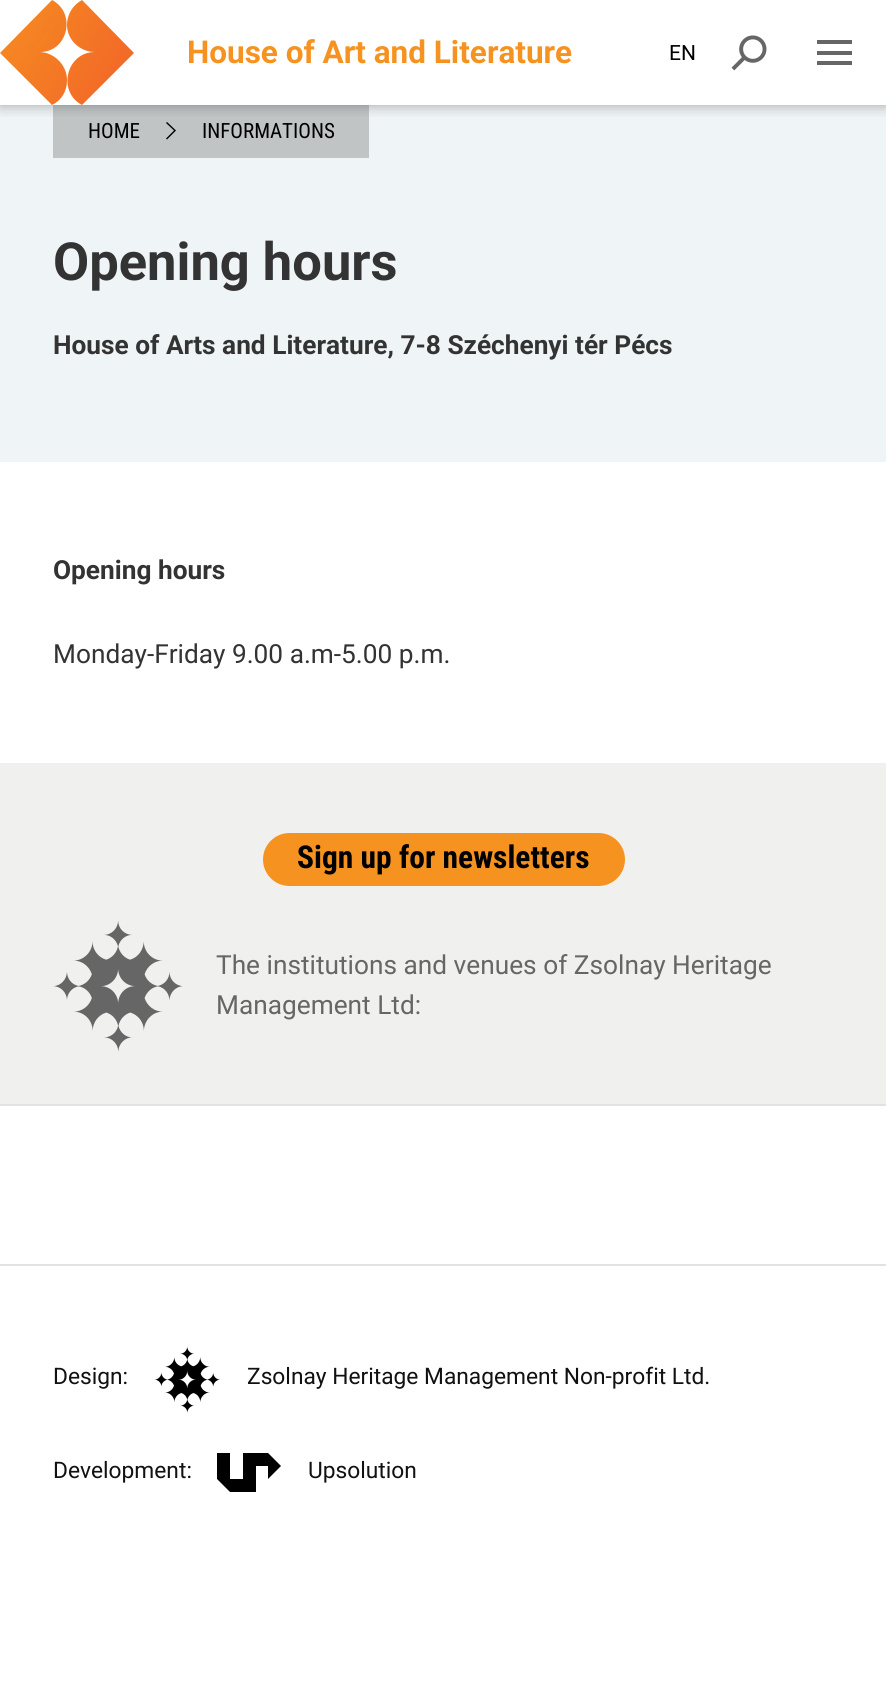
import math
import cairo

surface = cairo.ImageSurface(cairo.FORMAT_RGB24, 886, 1699)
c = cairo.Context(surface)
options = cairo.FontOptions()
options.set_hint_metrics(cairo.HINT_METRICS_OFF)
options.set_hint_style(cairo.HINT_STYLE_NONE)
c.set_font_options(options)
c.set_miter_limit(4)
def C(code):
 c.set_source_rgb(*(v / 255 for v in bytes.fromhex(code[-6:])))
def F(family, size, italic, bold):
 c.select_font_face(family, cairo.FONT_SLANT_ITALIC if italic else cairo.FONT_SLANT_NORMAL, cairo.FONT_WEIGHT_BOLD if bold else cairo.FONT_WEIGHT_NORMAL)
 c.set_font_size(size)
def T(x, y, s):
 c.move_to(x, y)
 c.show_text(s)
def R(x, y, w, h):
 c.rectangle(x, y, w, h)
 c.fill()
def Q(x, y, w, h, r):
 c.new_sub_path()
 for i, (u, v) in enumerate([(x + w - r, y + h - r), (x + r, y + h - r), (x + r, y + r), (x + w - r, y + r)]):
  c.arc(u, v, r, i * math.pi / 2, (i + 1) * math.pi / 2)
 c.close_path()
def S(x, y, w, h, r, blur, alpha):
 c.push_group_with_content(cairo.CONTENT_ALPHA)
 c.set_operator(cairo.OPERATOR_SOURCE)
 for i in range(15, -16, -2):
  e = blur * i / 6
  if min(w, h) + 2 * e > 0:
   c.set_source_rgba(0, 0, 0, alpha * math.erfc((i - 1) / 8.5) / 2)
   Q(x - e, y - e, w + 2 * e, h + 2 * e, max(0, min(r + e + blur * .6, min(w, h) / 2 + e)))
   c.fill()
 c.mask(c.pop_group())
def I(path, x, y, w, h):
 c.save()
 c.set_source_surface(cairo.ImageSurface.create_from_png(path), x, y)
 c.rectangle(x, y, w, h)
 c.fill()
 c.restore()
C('ffffff')
c.paint()
C('eff4f6')
R(0,105,886,357)
C('c0c4c5')
R(53,105,316,53)
C('000000')
c.new_path()
c.move_to(176,130.5)
c.line_to(167,139.5)
c.line_to(166,138.5)
c.line_to(174,130.5)
c.line_to(166,123)
c.line_to(167,122)
c.close_path()
c.fill()
c.save()
c.rectangle(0,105,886,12)
c.clip()
C('333333')
S(0,0,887,105,0,7,.43)
c.restore()
gradient = cairo.LinearGradient(-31,3.8,164,118)
gradient.add_color_stop_rgba(0,0.965,0.576,0.125,1)
gradient.add_color_stop_rgba(1,0.945,0.357,0.165,1)
c.set_source(gradient)
c.new_path()
c.move_to(67,80)
c.curve_to(67,65,54,52,39,52)
c.curve_to(68,53,77,13,52,0)
c.line_to(0,53)
c.line_to(52,105)
c.curve_to(62,100,67,91,67,80)
c.close_path()
c.fill()
gradient = cairo.LinearGradient(-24,-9,172,105)
gradient.add_color_stop_rgba(0,0.965,0.576,0.125,1)
gradient.add_color_stop_rgba(1,0.945,0.357,0.165,1)
c.set_source(gradient)
c.new_path()
c.move_to(67,25)
c.curve_to(67,40,80,52,95,52)
c.curve_to(66,52,57,92,82,105)
c.line_to(134,53)
c.line_to(82,0)
c.curve_to(73,5,67,14,67,25)
c.close_path()
c.fill()
F('Roboto',31.5,0,1)
C('f69320')
T(187,63,'House of Art and Literature')
F('Roboto',21,0,0)
C('000000')
T(669,60,'EN')
I('1.png',731,35,36,36)
C('666666')
R(817,51,35,4)
R(817,40,35,4)
R(817,61,35,4)
F('Roboto Condensed',21,0,0)
C('000000')
T(88,138,'HOME')
T(202,138,'INFORMATIONS')
F('Roboto',52.5,0,1)
C('333333')
T(53,280,'Opening hours')
F('Roboto',26.25,0,1)
T(53,354,'House of Arts and Literature, 7-8 Széchenyi tér Pécs')
T(53,579,'Opening hours')
F('Roboto',26.25,0,0)
T(53,663,'Monday-Friday 9.00 a.m-5.00 p.m.')
C('f0f1ef')
R(0,763,886,341)
C('f69320')
Q(263,833,362,53,26.5)
c.fill()
F('Roboto Condensed',31.5,0,1)
C('000000')
T(297,868,'Sign up for newsletters')
I('2.png',53,921,130,131)
F('Roboto',26.25,0,0)
C('666666')
T(216,974,'The institutions and venues of Zsolnay Heritage')
T(216,1014,'Management Ltd:')
C('e2e3e0')
R(0,1104,886,2)
R(0,1264,886,2)
F('Roboto',22.75,0,0)
C('111111')
T(53,1384,'Design:')
I('3.png',154,1346,66,67)
T(247,1384,'Zsolnay Heritage Management Non-profit Ltd.')
T(53,1478,'Development:')
C('000000')
c.new_path()
c.move_to(268,1453)
c.line_to(243,1453)
c.line_to(243,1479)
c.line_to(230,1479)
c.line_to(230,1453)
c.line_to(217,1453)
c.line_to(217,1479)
c.line_to(230,1492)
c.line_to(256,1492)
c.line_to(256,1466)
c.line_to(268,1466)
c.line_to(268,1479)
c.line_to(281,1466)
c.close_path()
c.fill()
C('111111')
T(308,1478,'Upsolution')
surface.write_to_png('o.png')
